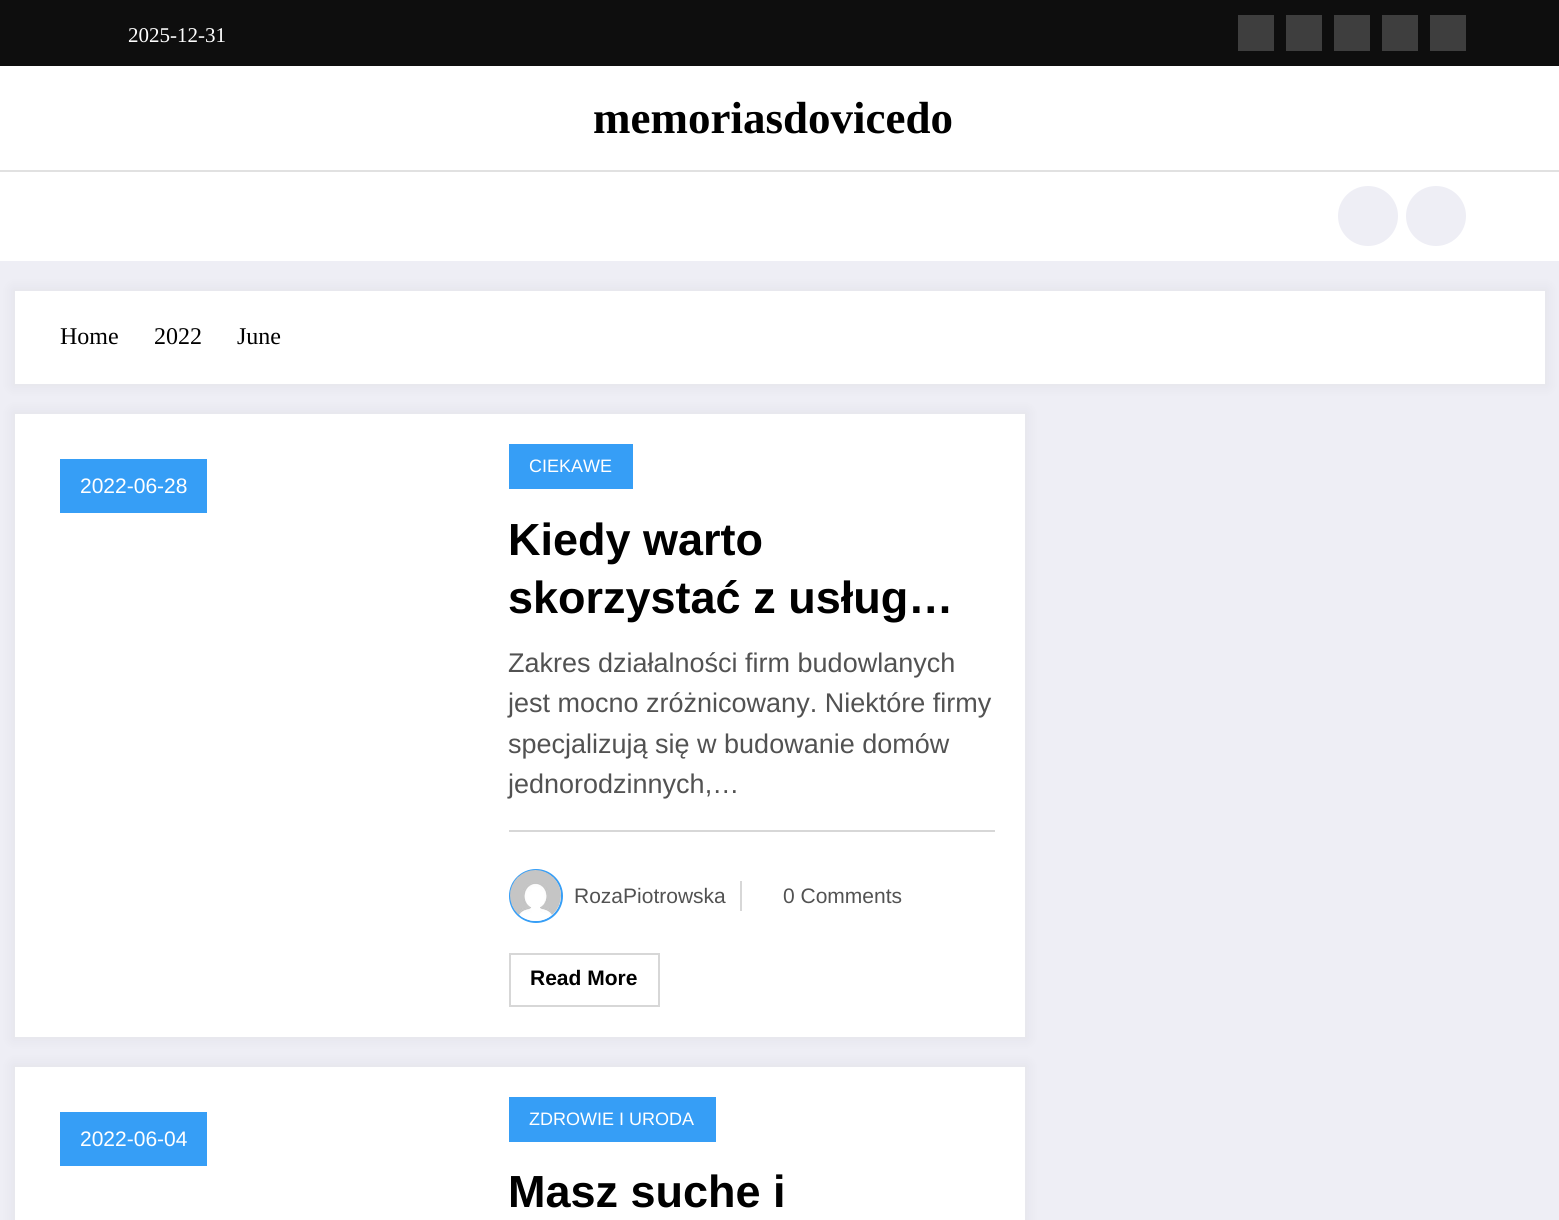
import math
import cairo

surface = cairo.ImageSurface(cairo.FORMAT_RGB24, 1559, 1220)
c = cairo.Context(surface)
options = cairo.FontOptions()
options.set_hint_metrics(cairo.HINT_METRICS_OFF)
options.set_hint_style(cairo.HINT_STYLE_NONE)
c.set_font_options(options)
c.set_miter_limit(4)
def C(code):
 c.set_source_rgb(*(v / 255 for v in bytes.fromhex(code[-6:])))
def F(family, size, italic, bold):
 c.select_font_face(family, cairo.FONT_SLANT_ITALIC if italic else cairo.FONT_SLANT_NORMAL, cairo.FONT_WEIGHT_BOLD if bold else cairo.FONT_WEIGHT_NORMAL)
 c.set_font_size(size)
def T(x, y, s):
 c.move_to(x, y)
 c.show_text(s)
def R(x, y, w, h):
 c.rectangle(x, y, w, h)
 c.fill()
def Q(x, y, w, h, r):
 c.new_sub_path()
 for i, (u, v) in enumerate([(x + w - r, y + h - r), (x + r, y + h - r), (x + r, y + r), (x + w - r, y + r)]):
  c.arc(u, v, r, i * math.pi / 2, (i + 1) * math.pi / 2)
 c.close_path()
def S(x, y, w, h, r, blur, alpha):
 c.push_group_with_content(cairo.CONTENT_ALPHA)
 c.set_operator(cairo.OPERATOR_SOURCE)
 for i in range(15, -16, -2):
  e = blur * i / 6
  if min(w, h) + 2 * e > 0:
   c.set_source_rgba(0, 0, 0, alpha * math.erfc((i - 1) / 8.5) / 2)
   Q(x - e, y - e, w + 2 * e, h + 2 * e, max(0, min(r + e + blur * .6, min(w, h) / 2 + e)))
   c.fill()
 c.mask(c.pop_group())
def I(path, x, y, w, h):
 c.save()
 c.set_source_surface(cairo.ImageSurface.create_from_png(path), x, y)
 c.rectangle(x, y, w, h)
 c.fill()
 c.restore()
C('eeeef5')
c.paint()
C('0e0e0e')
R(0,0,1559,66)
F('Liberation Serif',21,0,0)
C('ffffff')
T(128,42,'2025-12-31')
C('3e3e3e')
R(1238,15,36,36)
R(1286,15,36,36)
R(1334,15,36,36)
R(1382,15,36,36)
R(1430,15,36,36)
C('ffffff')
R(0,66,1559,195)
F('Liberation Serif',45,0,1)
C('000000')
T(593,133,'memoriasdovicedo')
C('e1e1e1')
R(0,170,1559,2)
C('eeeef5')
c.new_path()
c.arc(1368,216,30,0,2 * math.pi)
c.fill()
c.arc(1436,216,30,0,2 * math.pi)
c.fill()
C('171723')
S(12,288,1536,99,0,6,.05)
C('ffffff')
R(15,291,1530,93)
F('Liberation Serif',24,0,0)
C('000000')
T(60,344,'Home')
T(154,344,'2022')
T(237,344,'June')
C('171723')
S(12,411,1016,629,0,6,.05)
C('ffffff')
R(15,414,1010,623)
C('369ef6')
R(60,459,147,54)
F('Liberation Sans',21,0,0)
C('ffffff')
T(80,493,'2022-06-28')
C('369ef6')
R(509,444,124,45)
F('Liberation Sans',18,0,0)
C('ffffff')
T(529,472,'CIEKAWE')
F('Liberation Sans',45,0,1)
C('000000')
T(508,555,'Kiedy warto')
T(508,613,'skorzystać z usług…')
C('d7d7d7')
R(509,830,486,2)
F('Liberation Sans',27,0,0)
C('525252')
T(508,672,'Zakres działalności firm budowlanych')
T(508,712,'jest mocno zróżnicowany. Niektóre firmy')
T(508,753,'specjalizują się w budowanie domów')
T(508,793,'jednorodzinnych,…')
c.new_path()
c.arc(536,896,26,0,2 * math.pi)
C('369ef6')
c.stroke()
I('1.png',510,870,51,51)
F('Liberation Sans',21,0,0)
C('525252')
T(574,903,'RozaPiotrowska')
C('d7d7d7')
R(740,881,2,30)
C('525252')
T(783,903,'0 Comments')
c.rectangle(510,954,149,52)
C('d7d7d7')
c.stroke()
F('Liberation Sans',21,0,1)
C('000000')
T(530,985,'Read More')
C('171723')
S(12,1064,1016,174,0,6,.05)
C('ffffff')
R(15,1067,1010,153)
C('369ef6')
R(60,1112,147,54)
F('Liberation Sans',21,0,0)
C('ffffff')
T(80,1146,'2022-06-04')
C('369ef6')
R(509,1097,207,45)
F('Liberation Sans',18,0,0)
C('ffffff')
T(529,1125,'ZDROWIE I URODA')
F('Liberation Sans',45,0,1)
C('000000')
T(508,1207,'Masz suche i')
surface.write_to_png('o.png')
